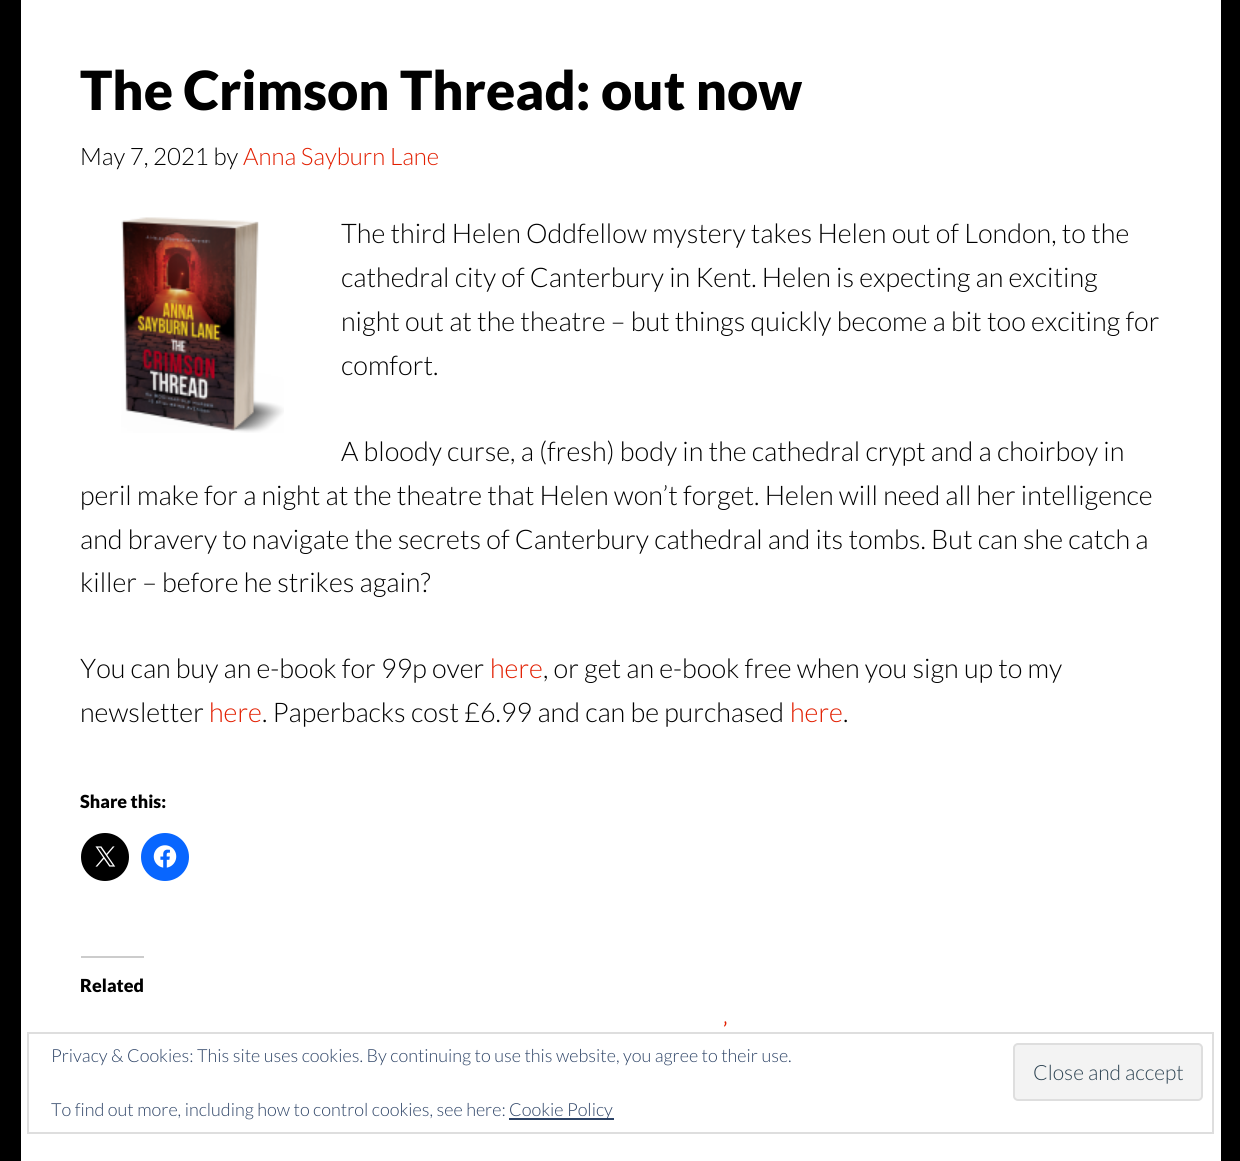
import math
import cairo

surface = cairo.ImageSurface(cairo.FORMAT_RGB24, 1240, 1161)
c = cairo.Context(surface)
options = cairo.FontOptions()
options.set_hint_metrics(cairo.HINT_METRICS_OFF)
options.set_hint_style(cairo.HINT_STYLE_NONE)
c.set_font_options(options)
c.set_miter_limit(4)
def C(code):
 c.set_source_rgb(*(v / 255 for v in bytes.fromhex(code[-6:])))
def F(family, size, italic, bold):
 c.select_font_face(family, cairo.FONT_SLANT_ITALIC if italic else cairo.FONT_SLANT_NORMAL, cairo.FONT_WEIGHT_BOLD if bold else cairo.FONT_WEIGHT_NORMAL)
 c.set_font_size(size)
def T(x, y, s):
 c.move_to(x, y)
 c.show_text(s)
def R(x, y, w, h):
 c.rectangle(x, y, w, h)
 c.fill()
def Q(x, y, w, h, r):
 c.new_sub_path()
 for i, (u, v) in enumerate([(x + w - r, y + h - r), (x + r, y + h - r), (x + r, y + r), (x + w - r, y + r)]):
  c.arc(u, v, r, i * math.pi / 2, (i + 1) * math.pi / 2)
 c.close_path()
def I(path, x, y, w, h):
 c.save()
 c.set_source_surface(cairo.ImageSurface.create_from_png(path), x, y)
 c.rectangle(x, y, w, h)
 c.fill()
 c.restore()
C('000000')
c.paint()
C('ffffff')
R(21,0,1200,1161)
F('Lato Black',54,0,0)
C('000000')
T(80,110,'The Crimson Thread: out now')
F('Lato Light',24,0,0)
T(80,165,'May 7, 2021 by')
C('e21e00')
T(243,165,'Anna Sayburn Lane')
I('1.png',121,217,163,216)
F('Lato Light',27,0,0)
C('000000')
T(341,243,'The third Helen Oddfellow mystery takes Helen out of London, to the')
T(341,287,'cathedral city of Canterbury in Kent. Helen is expecting an exciting')
T(341,331,'night out at the theatre – but things quickly become a bit too exciting for')
T(341,375,'comfort.')
T(341,461,'A bloody curse, a (fresh) body in the cathedral crypt and a choirboy in')
T(80,505,'peril make for a night at the theatre that Helen won’t forget. Helen will need all her intelligence')
T(80,549,'and bravery to navigate the secrets of Canterbury cathedral and its tombs. But can she catch a')
T(80,592,'killer – before he strikes again?')
T(80,678,'You can buy an e-book for 99p over')
C('e21e00')
T(490,678,'here')
C('000000')
T(543,678,', or get an e-book free when you sign up to my')
T(80,722,'newsletter')
C('e21e00')
T(209,722,'here')
C('000000')
T(262,722,'. Paperbacks cost £6.99 and can be purchased')
C('e21e00')
T(790,722,'here')
C('000000')
T(843,722,'.')
F('Lato Black',18,0,0)
T(80,808,'Share this:')
c.new_path()
c.arc(105,857,24,0,2 * math.pi)
c.fill()
I('2.png',95,846,21,21)
C('0866ff')
c.arc(165,857,24,0,2 * math.pi)
c.fill()
I('3.png',153,845,24,23)
C('cccccc')
R(81,956,63,2)
C('000000')
T(80,992,'Related')
F('Lato',21,0,0)
C('e21e00')
T(723,1037,'’')
c.rectangle(28,1033,1185,100)
C('dedede')
c.stroke()
F('Lato Light',18,0,0)
C('2e4467')
T(51,1062,'Privacy & Cookies: This site uses cookies. By continuing to use this website, you agree to their use.')
C('f3f3f3')
Q(1014,1044,188,56,4)
c.fill_preserve()
C('dedede')
c.stroke()
F('Lato Light',21,0,0)
C('2e4453')
T(1033,1080,'Close and accept')
F('Lato Light',18,0,0)
C('2e4467')
T(51,1116,'To find out more, including how to control cookies, see here:')
R(509,1118,105,2)
T(509,1116,'Cookie Policy')
surface.write_to_png('o.png')
